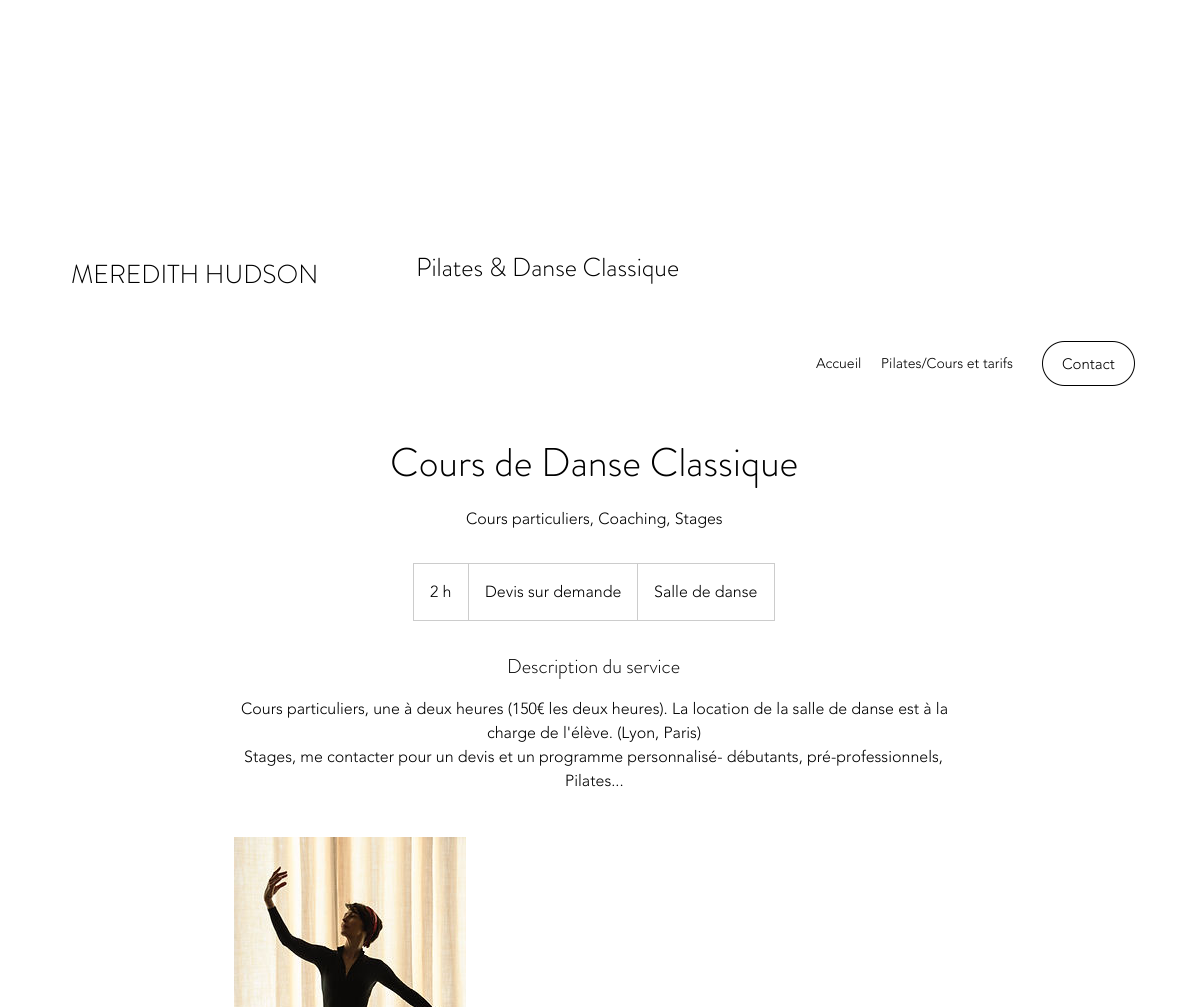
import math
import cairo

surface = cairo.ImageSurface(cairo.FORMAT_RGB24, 1188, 1007)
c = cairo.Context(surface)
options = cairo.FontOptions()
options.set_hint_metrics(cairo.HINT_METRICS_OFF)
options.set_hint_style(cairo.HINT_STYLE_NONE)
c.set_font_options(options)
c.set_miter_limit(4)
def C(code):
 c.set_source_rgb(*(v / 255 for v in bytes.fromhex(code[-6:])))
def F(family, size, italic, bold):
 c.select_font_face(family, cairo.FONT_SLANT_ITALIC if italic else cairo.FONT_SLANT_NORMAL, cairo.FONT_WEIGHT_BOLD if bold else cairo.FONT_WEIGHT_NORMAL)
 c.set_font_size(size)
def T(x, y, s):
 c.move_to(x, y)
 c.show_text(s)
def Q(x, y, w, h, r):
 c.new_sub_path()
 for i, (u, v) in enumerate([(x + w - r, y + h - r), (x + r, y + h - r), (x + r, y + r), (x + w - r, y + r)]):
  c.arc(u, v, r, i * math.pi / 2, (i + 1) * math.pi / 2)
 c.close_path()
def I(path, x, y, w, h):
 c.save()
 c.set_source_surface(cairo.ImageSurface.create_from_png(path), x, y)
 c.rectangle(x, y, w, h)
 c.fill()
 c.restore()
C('ffffff')
c.paint()
F('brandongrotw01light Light',26,0,0)
C('000000')
T(71,283,'MEREDITH HUDSON')
T(416,276,'Pilates & Danse Classique')
F('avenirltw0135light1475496 Light',14,0,0)
T(816,368,'Accueil')
T(881,368,'Pilates/Cours et tarifs')
Q(1042.5,341.5,92,44,22)
c.set_line_width(1)
c.stroke()
F('avenirltw0135light1475496 Light',15,0,0)
T(1062,369,'Contact')
F('brandongrotw01light Light',40,0,0)
T(390,476,'Cours de Danse Classique')
F('avenirltw0135light1475496 Light',16,0,0)
T(466,524,'Cours particuliers, Coaching, Stages')
c.rectangle(413.5,563.5,361,57)
C('cccccc')
c.stroke()
C('000000')
T(430,597,'2 h')
C('cccccc')
c.new_path()
c.move_to(468,620)
c.line_to(468,563)
c.line_to(469,564)
c.line_to(469,620)
c.close_path()
c.fill()
C('000000')
T(485,597,'Devis sur demande')
C('cccccc')
c.new_path()
c.move_to(637,620)
c.line_to(637,563)
c.line_to(638,564)
c.line_to(638,620)
c.close_path()
c.fill()
C('000000')
T(654,597,'Salle de danse')
F('brandongrotw01light Light',20,0,0)
T(507,673,'Description du service')
F('avenirltw0135light1475496 Light',16,0,0)
T(241,714,'Cours particuliers, une à deux heures (150€ les deux heures). La location de la salle de danse est à la')
T(487,738,'charge de l\'élève. (Lyon, Paris)')
T(244,762,'Stages, me contacter pour un devis et un programme personnalisé- débutants, pré-professionnels,')
T(565,786,'Pilates...')
I('1.png',234,837,232,170)
surface.write_to_png('o.png')
